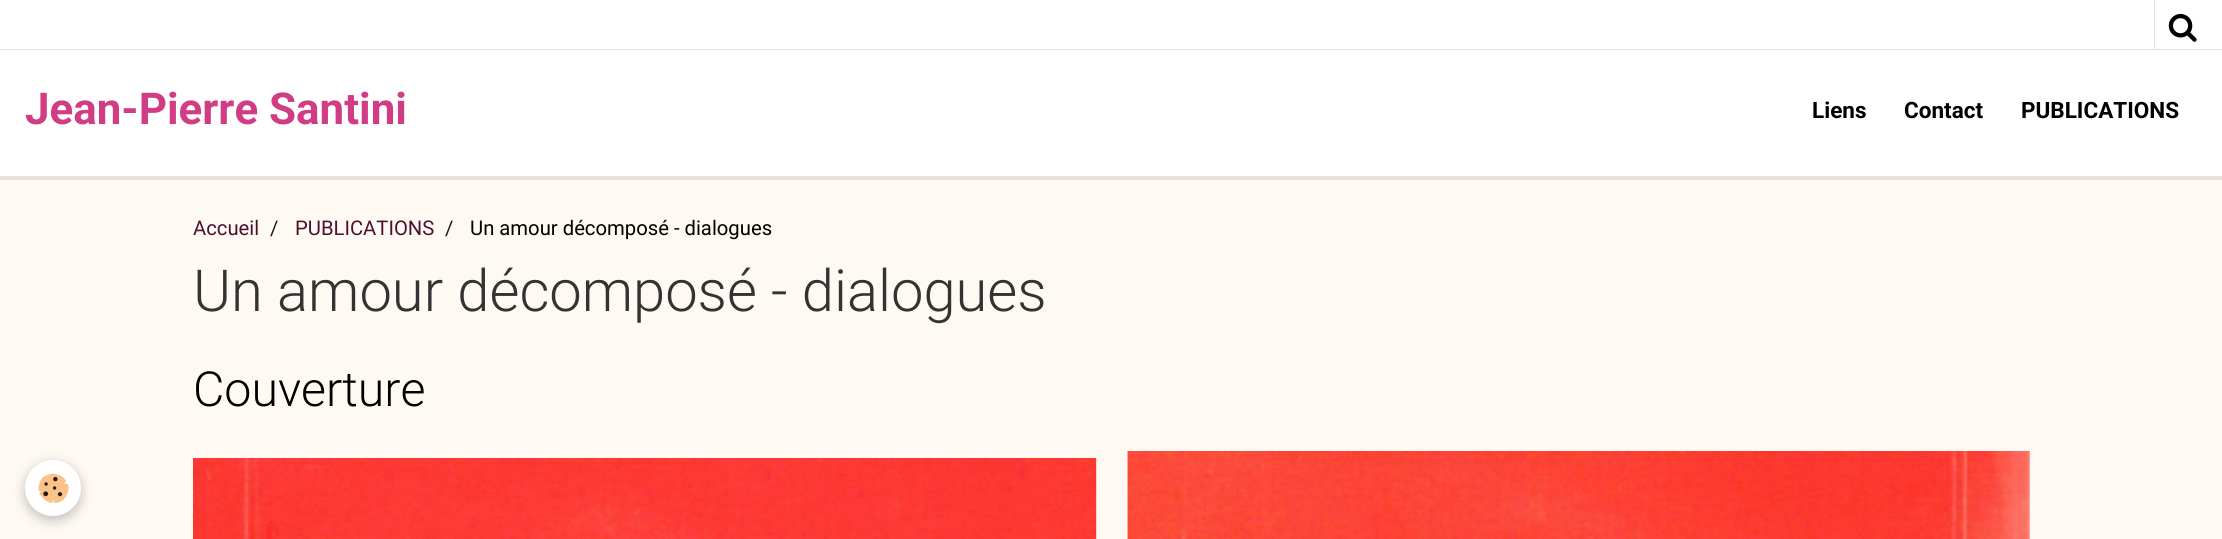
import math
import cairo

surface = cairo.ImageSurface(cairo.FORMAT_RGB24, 2222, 539)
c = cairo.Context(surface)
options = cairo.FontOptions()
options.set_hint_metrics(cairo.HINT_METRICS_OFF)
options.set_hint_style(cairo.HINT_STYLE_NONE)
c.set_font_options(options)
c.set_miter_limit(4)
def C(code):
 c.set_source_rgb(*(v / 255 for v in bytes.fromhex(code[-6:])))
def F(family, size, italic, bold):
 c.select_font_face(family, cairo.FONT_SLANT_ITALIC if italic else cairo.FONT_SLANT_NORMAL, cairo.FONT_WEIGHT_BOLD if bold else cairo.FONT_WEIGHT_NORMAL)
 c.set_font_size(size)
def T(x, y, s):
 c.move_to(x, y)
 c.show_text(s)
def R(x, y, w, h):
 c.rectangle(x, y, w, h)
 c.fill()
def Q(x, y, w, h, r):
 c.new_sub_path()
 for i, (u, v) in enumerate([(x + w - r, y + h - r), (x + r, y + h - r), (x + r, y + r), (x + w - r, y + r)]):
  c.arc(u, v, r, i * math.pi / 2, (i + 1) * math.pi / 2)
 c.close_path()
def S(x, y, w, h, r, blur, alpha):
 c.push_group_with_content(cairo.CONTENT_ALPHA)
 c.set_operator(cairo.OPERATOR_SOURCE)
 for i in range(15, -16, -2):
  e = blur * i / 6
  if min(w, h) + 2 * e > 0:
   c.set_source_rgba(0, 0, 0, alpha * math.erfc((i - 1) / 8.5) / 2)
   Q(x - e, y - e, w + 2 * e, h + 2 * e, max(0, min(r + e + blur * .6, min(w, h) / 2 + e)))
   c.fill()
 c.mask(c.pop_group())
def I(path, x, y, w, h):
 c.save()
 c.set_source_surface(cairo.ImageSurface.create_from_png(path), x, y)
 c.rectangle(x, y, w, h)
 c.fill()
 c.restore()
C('fef9f3')
c.paint()
C('e5e0db')
c.new_path()
c.move_to(0,176)
c.line_to(0,180)
c.line_to(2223,180)
c.line_to(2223,4)
c.line_to(2222,4)
c.line_to(2222,176)
c.close_path()
c.fill()
C('ffffff')
R(0,0,2222,176)
C('e2e2e2')
R(0,49,2222,1)
R(2154,0,1,49)
I('1.png',2168,13,29,29)
F('Roboto',43.9,0,1)
C('d13d84')
T(25,124,'Jean-Pierre Santini')
F('Roboto',22.5,0,1)
C('000000')
T(1812,118,'Liens')
T(1904,118,'Contact')
T(2021,118,'PUBLICATIONS')
F('Roboto',20.25,0,0)
C('4c1130')
T(193,235,'Accueil')
C('1a1a1a')
T(270,235,'/')
C('4c1130')
T(295,235,'PUBLICATIONS')
C('1a1a1a')
T(445,235,'/')
C('000000')
T(470,235,'Un amour décomposé - dialogues')
F('Roboto Light',57.9,0,0)
C('333333')
T(193,311,'Un amour décomposé - dialogues')
F('Roboto Light',48.25,0,0)
C('000000')
T(193,406,'Couverture')
I('2.png',193,458,904,81)
I('3.png',1127,451,903,88)
C('000000')
S(25,464,56,56,28,6,.24)
C('ffffff')
c.arc(53,488,28,0,2 * math.pi)
c.fill()
I('4.png',38,473,31,30)
surface.write_to_png('o.png')
